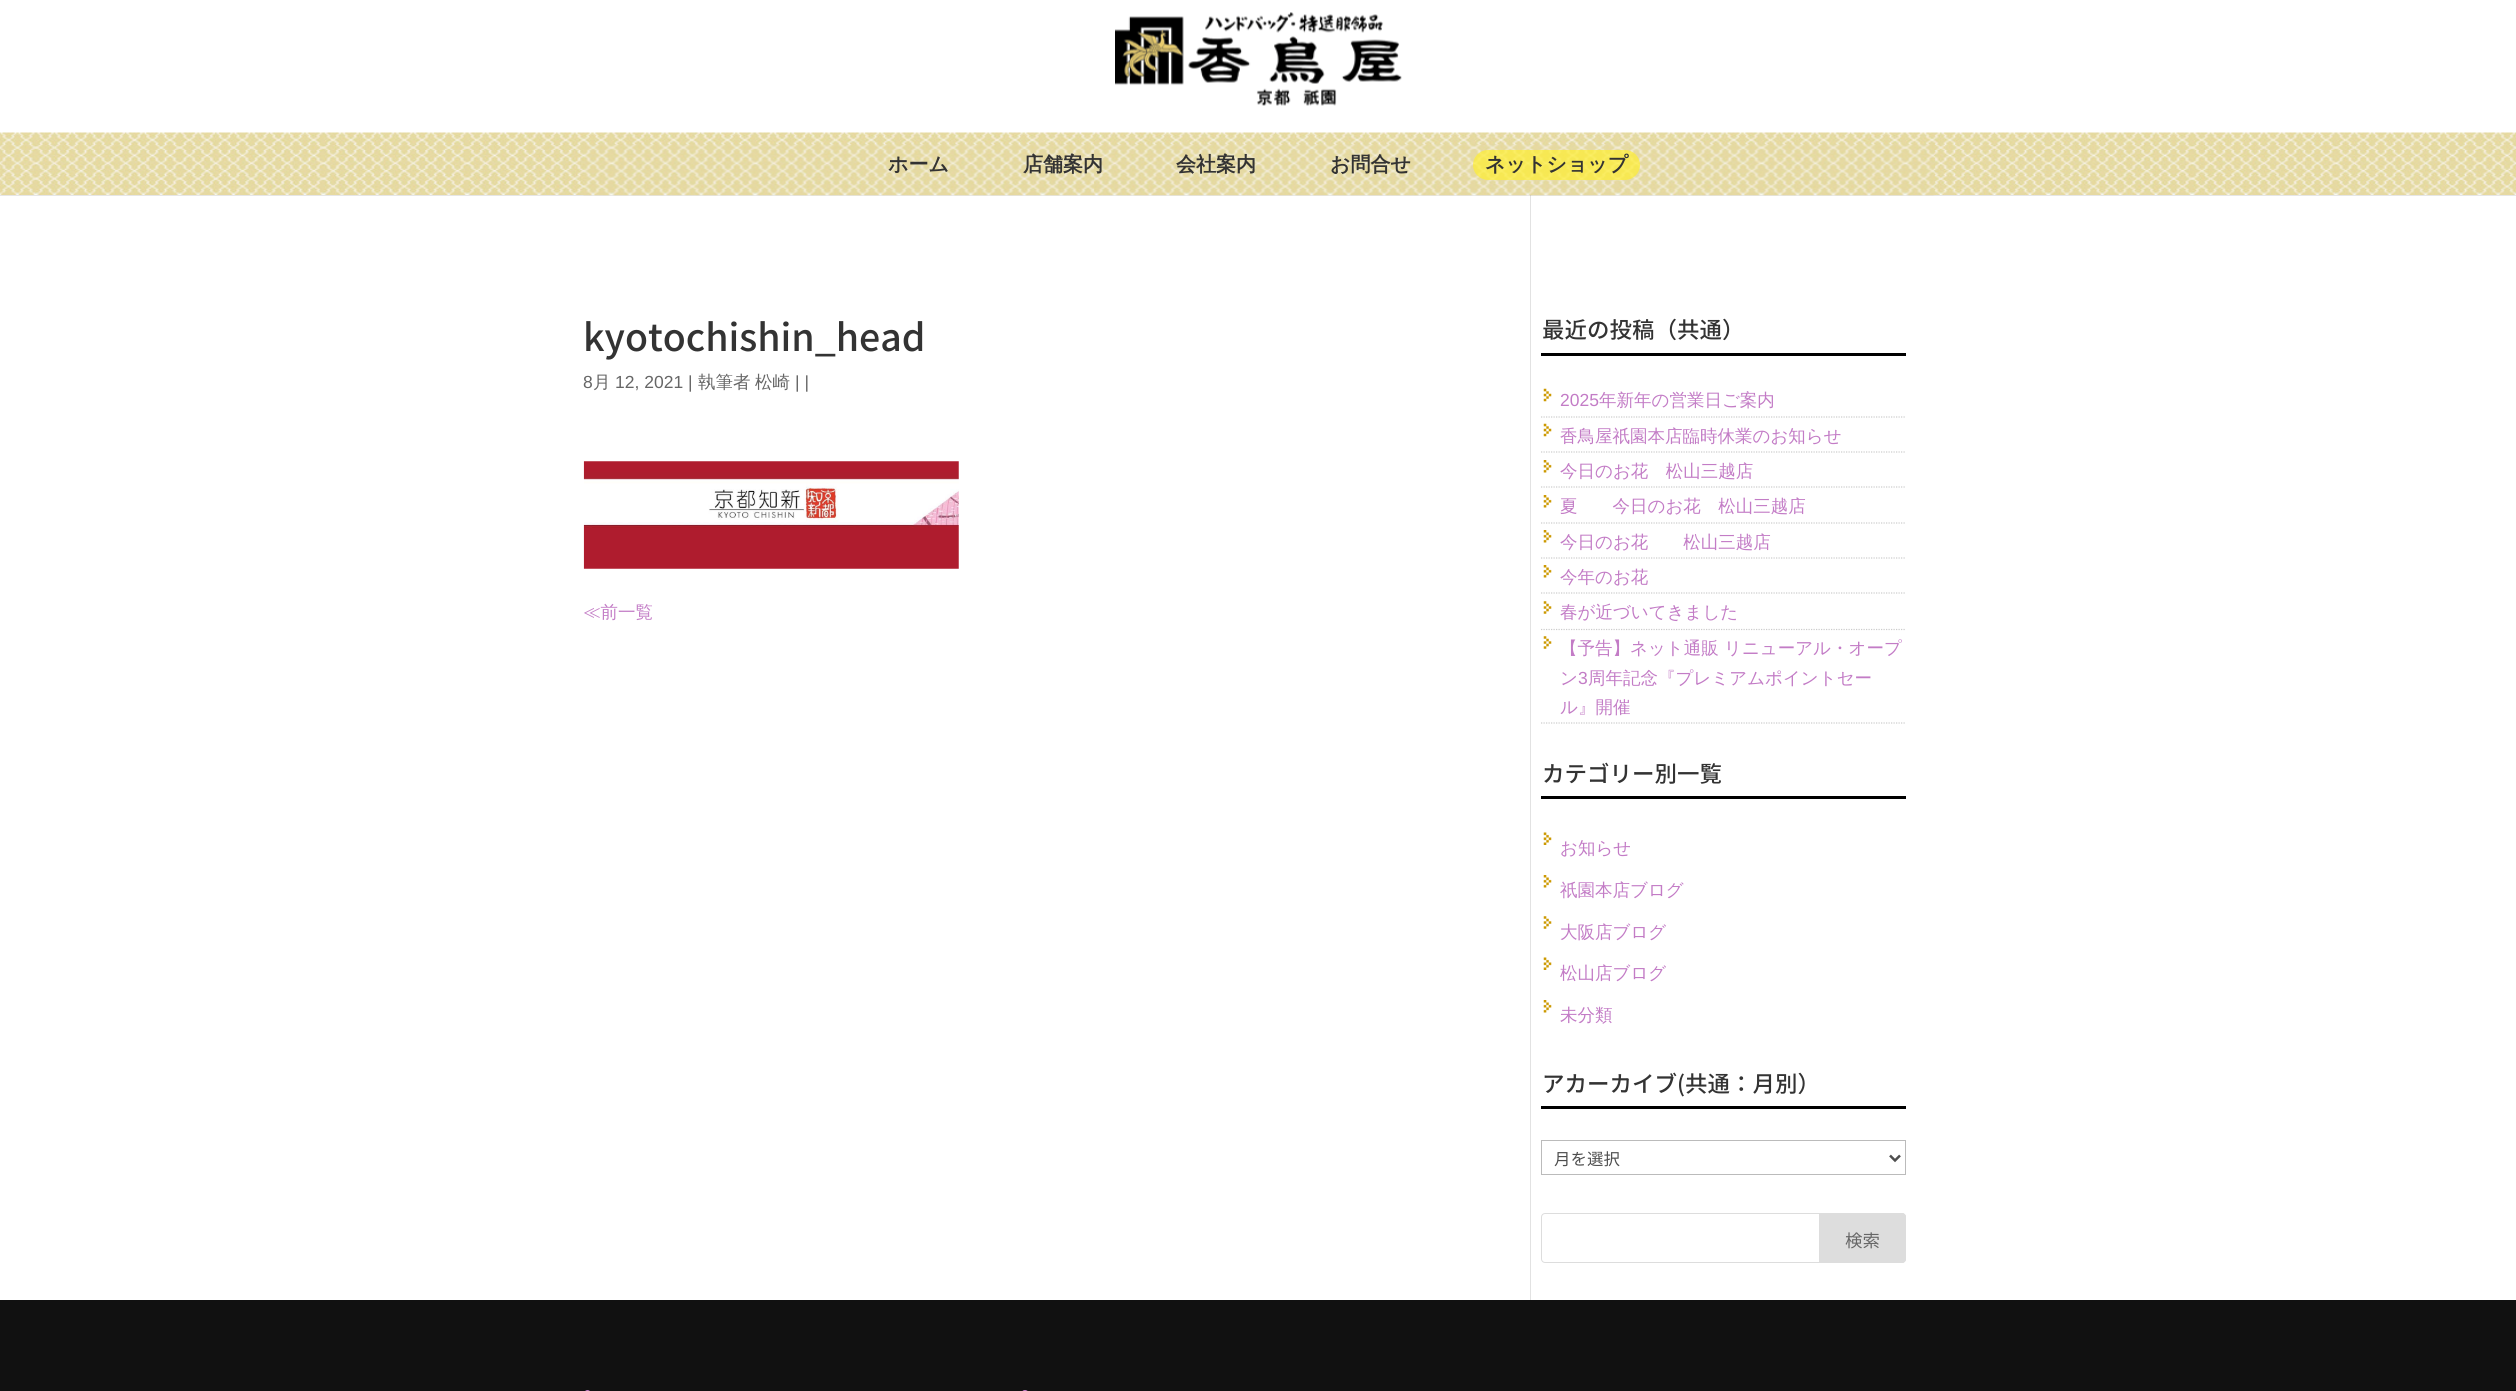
import math
import cairo

surface = cairo.ImageSurface(cairo.FORMAT_RGB24, 2516, 1391)
c = cairo.Context(surface)
options = cairo.FontOptions()
options.set_hint_metrics(cairo.HINT_METRICS_OFF)
options.set_hint_style(cairo.HINT_STYLE_NONE)
c.set_font_options(options)
c.set_miter_limit(4)
def C(code):
 c.set_source_rgb(*(v / 255 for v in bytes.fromhex(code[-6:])))
def F(family, size, italic, bold):
 c.select_font_face(family, cairo.FONT_SLANT_ITALIC if italic else cairo.FONT_SLANT_NORMAL, cairo.FONT_WEIGHT_BOLD if bold else cairo.FONT_WEIGHT_NORMAL)
 c.set_font_size(size)
def T(x, y, s):
 c.move_to(x, y)
 c.show_text(s)
def R(x, y, w, h):
 c.rectangle(x, y, w, h)
 c.fill()
def Q(x, y, w, h, r):
 c.new_sub_path()
 for i, (u, v) in enumerate([(x + w - r, y + h - r), (x + r, y + h - r), (x + r, y + r), (x + w - r, y + r)]):
  c.arc(u, v, r, i * math.pi / 2, (i + 1) * math.pi / 2)
 c.close_path()
def I(path, x, y, w, h):
 c.save()
 c.set_source_surface(cairo.ImageSurface.create_from_png(path), x, y)
 c.rectangle(x, y, w, h)
 c.fill()
 c.restore()
C('ffffff')
c.paint()
C('e6e6e6')
R(0,195,2516,1)
I('1.png',0,132,2516,63)
I('2.png',1115,12,287,94)
C('e2e2e2')
R(1530,195,1,1105)
C('cbcbcb')
R(1530,195,1,1)
I('3.png',583,144,1352,52)
F('WenQuanYi Zen Hei',20,0,1)
C('333333')
T(888,171,'ホーム')
T(1023,171,'店舗案内')
T(1176,171,'会社案内')
T(1330,171,'お問合せ')
c.set_source_rgba(1,0.937,0.184,0.68)
Q(1473,150,167,30,15)
c.fill()
C('333333')
T(1485,171,'ネットショップ')
F('Noto Sans JP Medium',37.5,0,0)
T(583,351,'kyotochishin_head')
F('Liberation Sans',17.5,0,0)
C('666666')
T(583,388,'8')
F('WenQuanYi Zen Hei Medium',17.5,0,0)
T(593,388,'月')
F('Liberation Sans',17.5,0,0)
T(615,388,'12, 2021 |')
F('WenQuanYi Zen Hei Medium',17.5,0,0)
T(698,388,'執筆者')
T(755,388,'松崎')
F('Liberation Sans',17.5,0,0)
T(795,388,'| |')
I('4.png',583,461,376,108)
F('WenQuanYi Zen Hei Medium',17.5,0,0)
C('c37cc6')
T(583,618,'≪前一覧')
C('000000')
R(1541,353,365,3)
F('Noto Sans JP Medium',22.5,0,0)
C('333333')
T(1542,338,'最近の投稿（共通）')
I('5.png',1543,388,9,14)
c.new_path()
c.move_to(1541,417)
c.line_to(1906,417)
C('cccccc')
c.set_line_width(1.2)
c.set_dash([1.25,1.25])
c.stroke()
F('Liberation Sans',17.5,0,0)
C('c37cc6')
T(1560,406,'2025')
F('WenQuanYi Zen Hei Medium',17.5,0,0)
T(1599,406,'年新年の営業日ご案内')
I('5.png',1543,423,9,14)
c.new_path()
c.move_to(1541,452)
c.line_to(1906,452)
C('cccccc')
c.stroke()
C('c37cc6')
T(1560,442,'香鳥屋祇園本店臨時休業のお知らせ')
I('6.png',1543,460,9,13)
c.new_path()
c.move_to(1541,487)
c.line_to(1906,487)
C('cccccc')
c.stroke()
C('c37cc6')
T(1560,477,'今日のお花　松山三越店')
I('6.png',1543,495,9,13)
c.new_path()
c.move_to(1541,523)
c.line_to(1906,523)
C('cccccc')
c.stroke()
C('c37cc6')
T(1560,512,'夏　　今日のお花　松山三越店')
I('6.png',1543,530,9,13)
c.new_path()
c.move_to(1541,558)
c.line_to(1906,558)
C('cccccc')
c.stroke()
C('c37cc6')
T(1560,548,'今日のお花　　松山三越店')
I('6.png',1543,565,9,13)
c.new_path()
c.move_to(1541,593)
c.line_to(1906,593)
C('cccccc')
c.stroke()
C('c37cc6')
T(1560,583,'今年のお花')
I('7.png',1543,601,9,13)
c.new_path()
c.move_to(1541,629.5)
c.line_to(1906,629.5)
C('cccccc')
c.stroke()
C('c37cc6')
T(1560,618,'春が近づいてきました')
I('7.png',1543,636,9,13)
c.new_path()
c.move_to(1541,723)
c.line_to(1906,723)
C('cccccc')
c.stroke()
C('c37cc6')
T(1560,654,'【予告】ネット通販 リニューアル・オープ')
T(1560,684,'ン')
F('Liberation Sans',17.5,0,0)
T(1578,684,'3')
F('WenQuanYi Zen Hei Medium',17.5,0,0)
T(1588,684,'周年記念『プレミアムポイントセー')
T(1560,713,'ル』開催')
C('000000')
R(1541,796,365,3)
F('Noto Sans JP Medium',22.5,0,0)
C('333333')
T(1542,782,'カテゴリー別一覧')
I('8.png',1543,832,9,13)
F('WenQuanYi Zen Hei Medium',17.5,0,0)
C('c37cc6')
T(1560,854,'お知らせ')
I('6.png',1543,875,9,13)
T(1560,896,'祇園本店ブログ')
I('7.png',1543,916,9,13)
T(1560,938,'大阪店ブログ')
I('8.png',1543,957,9,13)
T(1560,979,'松山店ブログ')
I('6.png',1543,1000,9,13)
T(1560,1021,'未分類')
C('000000')
R(1541,1106,365,3)
F('Noto Sans JP Medium',22.5,0,0)
C('333333')
T(1542,1092,'アカーカイブ(共通：月別）')
c.rectangle(1541.5,1140.5,364,34)
C('bbbbbb')
c.set_line_width(1)
c.set_dash([])
c.stroke()
c.new_path()
c.move_to(1890,1155.5)
c.line_to(1895,1160.5)
c.line_to(1900,1155.5)
C('4e4e4e')
c.set_line_width(2.5)
c.stroke()
F('Noto Sans JP',16.5,0,0)
T(1554,1165,'月を選択')
Q(1541.5,1213.5,364,49,3.5)
C('dddddd')
c.set_line_width(1)
c.stroke()
c.new_path()
c.move_to(1819.5,1213.5)
c.line_to(1902,1213.5)
c.curve_to(1904,1213.5,1905.5,1215,1905.5,1217)
c.line_to(1905.5,1259)
c.curve_to(1905.5,1261,1904,1262.5,1902,1262.5)
c.line_to(1819.5,1262.5)
c.close_path()
c.fill_preserve()
c.stroke()
F('Noto Sans JP',17.5,0,0)
C('666666')
T(1845,1247,'検索')
C('111111')
R(0,1300,2516,91)
C('c37cc6')
Q(584,1390,7,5,3.5)
c.fill()
Q(1021,1390,8,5,4)
c.fill()
surface.write_to_png('o.png')
